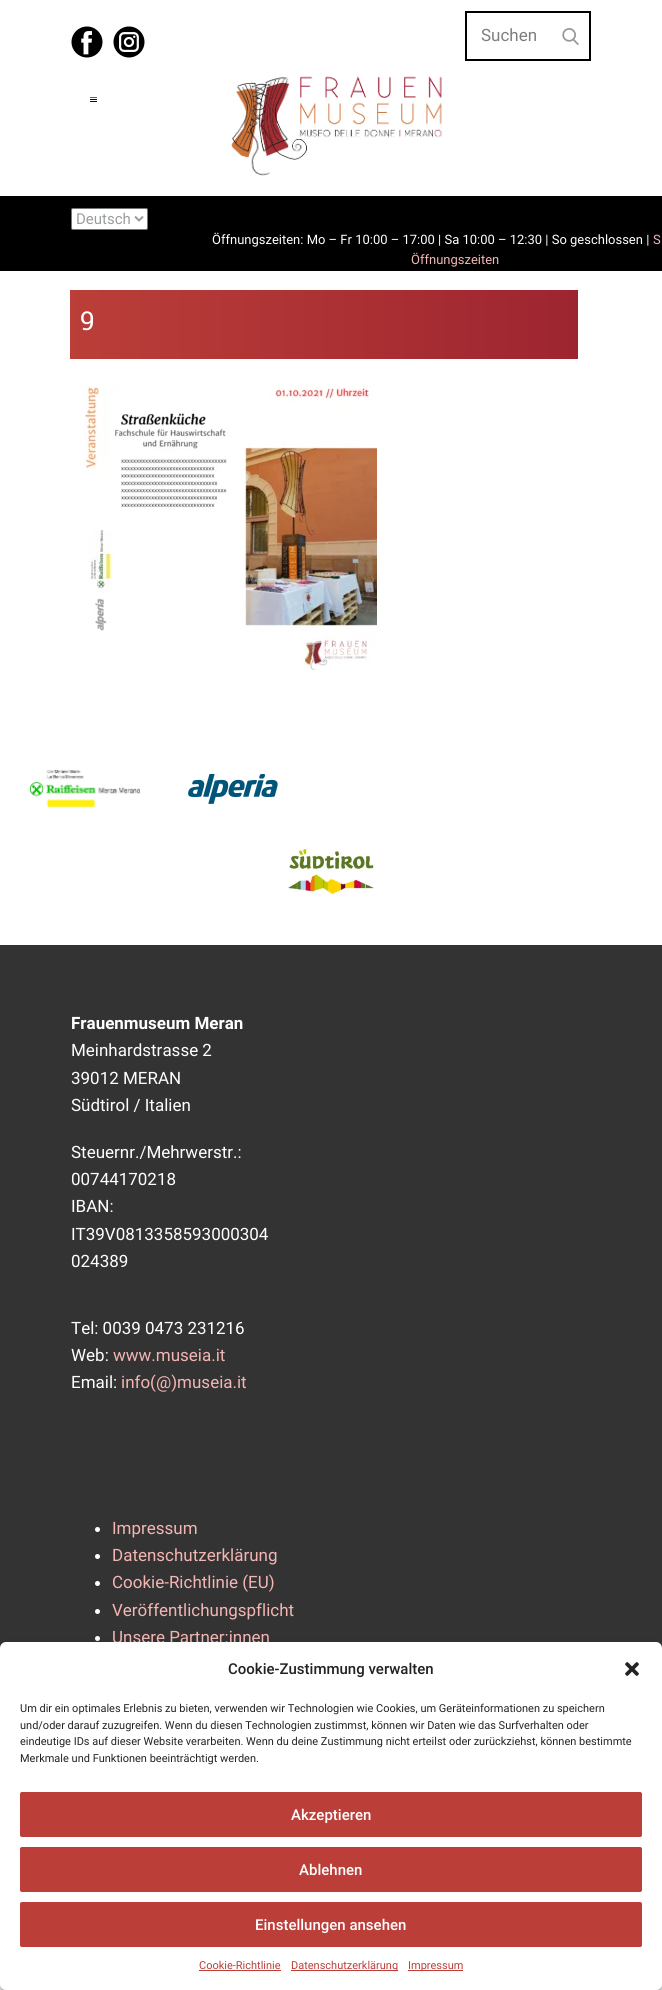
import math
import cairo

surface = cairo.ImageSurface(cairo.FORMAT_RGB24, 662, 1990)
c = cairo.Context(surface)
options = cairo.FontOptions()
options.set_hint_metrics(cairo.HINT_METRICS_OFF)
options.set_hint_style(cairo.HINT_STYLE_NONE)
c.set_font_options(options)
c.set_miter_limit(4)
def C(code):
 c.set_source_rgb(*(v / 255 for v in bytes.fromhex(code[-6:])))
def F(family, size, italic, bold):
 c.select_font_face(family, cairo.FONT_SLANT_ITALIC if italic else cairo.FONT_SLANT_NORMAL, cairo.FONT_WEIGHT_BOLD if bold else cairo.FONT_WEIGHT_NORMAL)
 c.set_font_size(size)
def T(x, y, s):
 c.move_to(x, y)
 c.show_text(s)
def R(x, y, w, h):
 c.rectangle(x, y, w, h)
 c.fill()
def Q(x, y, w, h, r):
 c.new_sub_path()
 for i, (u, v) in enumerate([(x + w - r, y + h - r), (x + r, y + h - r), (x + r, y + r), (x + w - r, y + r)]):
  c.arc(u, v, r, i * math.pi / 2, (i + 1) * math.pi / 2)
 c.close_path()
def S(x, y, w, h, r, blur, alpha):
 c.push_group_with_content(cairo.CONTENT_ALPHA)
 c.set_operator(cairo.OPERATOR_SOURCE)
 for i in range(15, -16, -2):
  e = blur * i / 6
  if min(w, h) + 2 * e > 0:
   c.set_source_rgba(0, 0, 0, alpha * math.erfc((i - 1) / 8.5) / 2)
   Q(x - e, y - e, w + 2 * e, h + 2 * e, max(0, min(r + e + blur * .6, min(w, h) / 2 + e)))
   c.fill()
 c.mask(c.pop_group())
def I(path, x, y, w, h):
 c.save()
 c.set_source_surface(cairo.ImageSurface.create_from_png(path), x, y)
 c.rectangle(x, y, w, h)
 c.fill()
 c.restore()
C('ffffff')
c.paint()
I('1.png',71,26,32,32)
I('2.png',113,26,32,32)
c.rectangle(466,12,124,48)
C('000000')
c.stroke()
F('Roboto',17,0,0)
C('7e7e7e')
T(481,41,'Suchen')
I('3.png',562,28,17,17)
C('616161')
R(90,97,7,1)
C('111111')
R(90,99,7,1)
R(90,101,7,1)
I('4.png',231,76,211,100)
C('000000')
R(0,196,662,75)
C('ffffff')
Q(71.5,208.5,76,21,1.5)
c.fill_preserve()
C('767676')
c.set_line_width(1)
c.stroke()
c.new_path()
c.move_to(135,216.5)
c.line_to(139,220.5)
c.line_to(143,216.5)
C('999d9d')
c.set_line_width(2)
c.stroke()
F('Roboto',15,0,0)
T(76,224,'Deutsch')
F('Roboto',13,0,0)
C('ffffff')
T(212,244,'Öffnungszeiten: Mo – Fr 10:00 – 17:00 | Sa 10:00 – 12:30 | So geschlossen |')
C('f3b6b3')
T(653,244,'S')
T(411,264,'Öffnungszeiten')
gradient = cairo.LinearGradient(70,325,578,325)
gradient.add_color_stop_rgba(0,0.733,0.243,0.22,1)
gradient.add_color_stop_rgba(1,0.616,0.145,0.188,1)
c.set_source(gradient)
R(70,290,508,69)
F('Roboto Slab',26,0,0)
C('ffffff')
T(80,330,'9')
I('5.png',84,386,293,284)
C('333333')
R(0,945,662,703)
I('6.png',30,770,110,37)
I('7.png',188,774,90,30)
I('8.png',288,848,87,47)
F('Roboto',17,0,1)
C('ffffff')
T(71,1029,'Frauenmuseum Meran')
F('Roboto',17,0,0)
T(71,1056,'Meinhardstrasse 2')
T(71,1084,'39012 MERAN')
T(71,1111,'Südtirol / Italien')
T(71,1158,'Steuernr./Mehrwerstr.:')
T(71,1185,'00744170218')
T(71,1212,'IBAN:')
T(71,1240,'IT39V0813358593000304')
T(71,1267,'024389')
T(71,1334,'Tel: 0039 0473 231216')
T(71,1361,'Web:')
C('f3b6b3')
T(113,1361,'www.museia.it')
C('ffffff')
T(71,1388,'Email:')
C('f3b6b3')
T(121,1388,'info(@)museia.it')
C('ffffff')
c.new_path()
c.arc(97.5,1529.5,2.5,0,2 * math.pi)
c.fill()
C('f3b6b3')
T(112,1534,'Impressum')
C('ffffff')
c.new_path()
c.arc(97.5,1556.5,2.5,0,2 * math.pi)
c.fill()
C('f3b6b3')
T(112,1561,'Datenschutzerklärung')
C('ffffff')
c.new_path()
c.arc(97.5,1583.5,2.5,0,2 * math.pi)
c.fill()
C('f3b6b3')
T(112,1588,'Cookie-Richtlinie (EU)')
C('ffffff')
c.new_path()
c.arc(97.5,1611.5,2.5,0,2 * math.pi)
c.fill()
C('f3b6b3')
T(112,1616,'Veröffentlichungspflicht')
C('ffffff')
c.new_path()
c.arc(97.5,1638.5,2.5,0,2 * math.pi)
c.fill()
C('f3b6b3')
T(112,1643,'Unsere Partner:innen')
C('000000')
S(0,1648,662,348,6,3,.23)
S(0,1652,662,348,6,10,.19)
C('ffffff')
Q(0,1642,662,348,6)
c.fill()
F('Roboto Medium',15,0,0)
C('222222')
T(228,1674,'Cookie-Zustimmung verwalten')
I('9.png',625,1662,14,14)
F('Roboto',11,0,0)
T(20,1712,'Um dir ein optimales Erlebnis zu bieten, verwenden wir Technologien wie Cookies, um Geräteinformationen zu speichern')
T(20,1729,'und/oder darauf zuzugreifen. Wenn du diesen Technologien zustimmst, können wir Daten wie das Surfverhalten oder')
T(20,1745,'eindeutige IDs auf dieser Website verarbeiten. Wenn du deine Zustimmung nicht erteilst oder zurückziehst, können bestimmte')
T(20,1762,'Merkmale und Funktionen beeinträchtigt werden.')
C('bb3e38')
Q(20.5,1792.5,621,44,1.5)
c.fill_preserve()
c.set_line_width(1)
c.stroke()
F('Roboto Medium',15,0,0)
C('ffffff')
T(291,1820,'Akzeptieren')
C('bb3e38')
Q(20.5,1847.5,621,44,1.5)
c.fill_preserve()
c.stroke()
C('ffffff')
T(299,1875,'Ablehnen')
C('bb3e38')
Q(20.5,1902.5,621,44,1.5)
c.fill_preserve()
c.stroke()
C('ffffff')
T(255,1930,'Einstellungen ansehen')
F('Roboto',11,0,0)
C('bb3e38')
T(199,1969,'Cookie-Richtlinie')
R(199,1970,82,1)
R(291,1970,107,1)
T(291,1969,'Datenschutzerklärung')
R(408,1970,55,1)
T(408,1969,'Impressum')
surface.write_to_png('o.png')
